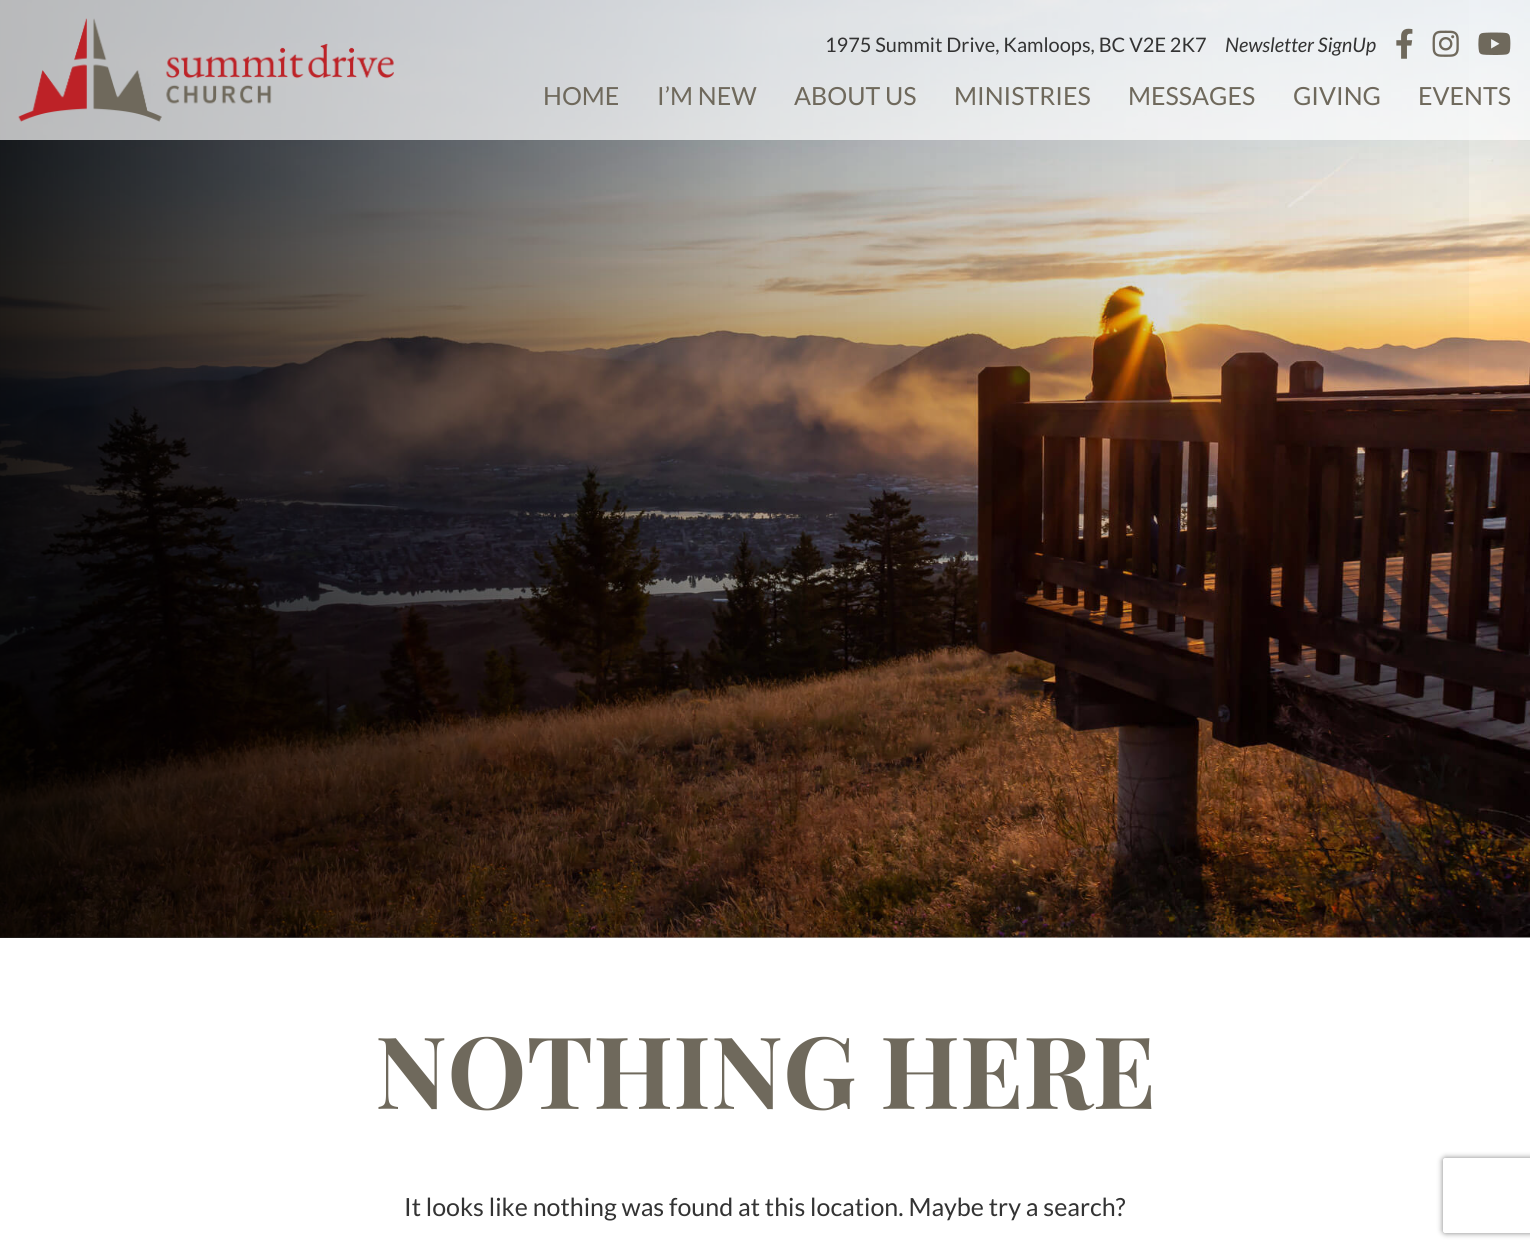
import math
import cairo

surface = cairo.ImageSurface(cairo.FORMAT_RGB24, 1530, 1250)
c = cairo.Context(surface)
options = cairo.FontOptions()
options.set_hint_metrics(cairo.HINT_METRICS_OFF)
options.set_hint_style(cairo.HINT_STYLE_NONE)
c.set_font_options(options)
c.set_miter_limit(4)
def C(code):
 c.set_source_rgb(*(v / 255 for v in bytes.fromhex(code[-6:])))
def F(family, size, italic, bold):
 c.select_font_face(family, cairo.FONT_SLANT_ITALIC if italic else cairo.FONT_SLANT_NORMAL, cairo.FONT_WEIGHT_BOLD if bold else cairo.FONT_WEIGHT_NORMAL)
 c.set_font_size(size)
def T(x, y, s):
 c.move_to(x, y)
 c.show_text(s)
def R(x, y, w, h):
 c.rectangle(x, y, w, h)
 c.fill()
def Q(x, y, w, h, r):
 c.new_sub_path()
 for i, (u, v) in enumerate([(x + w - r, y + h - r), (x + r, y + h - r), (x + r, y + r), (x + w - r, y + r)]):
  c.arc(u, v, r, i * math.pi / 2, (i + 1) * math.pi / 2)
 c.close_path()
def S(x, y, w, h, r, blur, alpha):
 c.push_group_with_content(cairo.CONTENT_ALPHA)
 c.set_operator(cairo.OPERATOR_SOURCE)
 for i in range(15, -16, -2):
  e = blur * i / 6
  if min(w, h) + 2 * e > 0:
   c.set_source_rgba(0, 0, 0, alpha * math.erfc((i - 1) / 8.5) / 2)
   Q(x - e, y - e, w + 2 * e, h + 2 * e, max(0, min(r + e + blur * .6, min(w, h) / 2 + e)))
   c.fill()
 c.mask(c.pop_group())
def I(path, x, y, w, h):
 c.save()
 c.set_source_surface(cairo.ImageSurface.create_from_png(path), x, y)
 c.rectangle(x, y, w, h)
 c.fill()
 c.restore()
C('ffffff')
c.paint()
I('1.png',0,0,1530,938)
gradient = cairo.LinearGradient(0,469,1530,469)
gradient.add_color_stop_rgba(0,0,0,0,.85)
gradient.add_color_stop_rgba(.5,0,0,0,.27)
gradient.add_color_stop_rgba(1,0,0,0,0)
c.set_source(gradient)
R(0,0,1469,938)
c.set_source_rgba(1,1,1,0.7)
R(0,0,1530,140)
I('2.png',18,18,376,104)
F('Lato',20,0,0)
C('333333')
T(825,52,'1975 Summit Drive, Kamloops, BC V2E 2K7')
F('Lato',20,1,0)
T(1225,52,'Newsletter SignUp')
I('3.png',1396,28,17,31)
I('4.png',1432,30,27,27)
I('5.png',1478,32,33,23)
F('Lato',25,0,0)
C('6f695c')
T(543,105,'HOME')
T(657,105,'I’M NEW')
T(794,105,'ABOUT US')
T(954,105,'MINISTRIES')
T(1128,105,'MESSAGES')
T(1293,105,'GIVING')
T(1418,105,'EVENTS')
F('Playfair Display',100,0,1)
T(375,1109,'NOTHING HERE')
F('Lato',25,0,0)
C('333333')
T(404,1216,'It looks like nothing was found at this location. Maybe try a search?')
c.save()
c.set_fill_rule(cairo.FILL_RULE_EVEN_ODD)
c.new_path()
c.move_to(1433,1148)
c.line_to(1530,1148)
c.line_to(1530,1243)
c.line_to(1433,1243)
c.close_path()
c.move_to(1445.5,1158)
c.line_to(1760.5,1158)
c.curve_to(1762,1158,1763,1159,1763,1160.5)
c.line_to(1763,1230.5)
c.curve_to(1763,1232,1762,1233,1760.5,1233)
c.line_to(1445.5,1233)
c.curve_to(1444,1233,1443,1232,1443,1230.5)
c.line_to(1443,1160.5)
c.curve_to(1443,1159,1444,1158,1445.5,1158)
c.close_path()
c.clip()
C('808080')
S(1443,1158,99,75,2.5,3,1)
c.restore()
surface.write_to_png('o.png')
